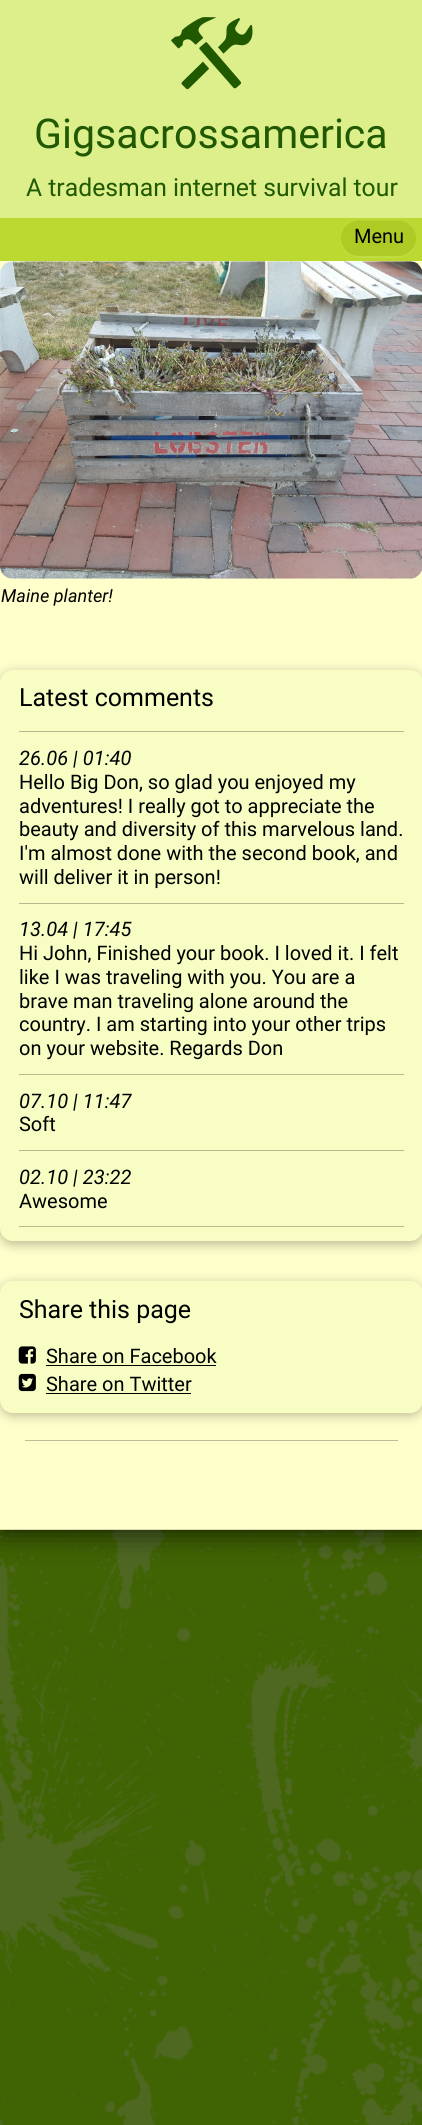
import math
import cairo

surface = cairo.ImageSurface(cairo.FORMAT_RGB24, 422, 2125)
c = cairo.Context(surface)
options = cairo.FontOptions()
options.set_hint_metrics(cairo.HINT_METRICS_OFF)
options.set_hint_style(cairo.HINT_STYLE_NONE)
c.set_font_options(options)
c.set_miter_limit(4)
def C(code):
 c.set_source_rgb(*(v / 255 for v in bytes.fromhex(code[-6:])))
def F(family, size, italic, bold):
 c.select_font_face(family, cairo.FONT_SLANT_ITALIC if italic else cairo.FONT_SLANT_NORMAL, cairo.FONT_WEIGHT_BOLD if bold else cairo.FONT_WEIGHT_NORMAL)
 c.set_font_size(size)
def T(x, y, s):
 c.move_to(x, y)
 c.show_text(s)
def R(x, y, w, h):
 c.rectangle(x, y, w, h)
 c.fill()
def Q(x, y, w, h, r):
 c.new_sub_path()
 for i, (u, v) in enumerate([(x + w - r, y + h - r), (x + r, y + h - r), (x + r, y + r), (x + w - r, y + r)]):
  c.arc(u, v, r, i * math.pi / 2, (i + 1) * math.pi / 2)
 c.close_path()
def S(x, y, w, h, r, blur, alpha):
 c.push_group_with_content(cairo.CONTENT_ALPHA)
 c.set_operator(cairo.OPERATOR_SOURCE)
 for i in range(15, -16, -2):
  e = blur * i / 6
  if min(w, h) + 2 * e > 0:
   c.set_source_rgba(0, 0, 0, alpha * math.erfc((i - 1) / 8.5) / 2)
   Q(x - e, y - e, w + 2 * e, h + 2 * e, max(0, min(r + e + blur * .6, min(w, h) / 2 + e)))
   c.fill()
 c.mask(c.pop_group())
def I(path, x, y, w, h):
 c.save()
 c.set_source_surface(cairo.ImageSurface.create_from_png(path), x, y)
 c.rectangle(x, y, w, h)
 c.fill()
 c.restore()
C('406303')
c.paint()
I('1.png',0,1530,422,595)
C('000000')
S(0,0,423,1530,0,15,.8)
C('ffffcc')
R(0,261,422,1268)
C('d9d9ad')
R(0,1529,422,1)
C('ddef8b')
R(0,0,422,218)
I('2.png',171,17,82,73)
F('Roboto',41.1,0,0)
C('205900')
T(34,148,'Gigsacrossamerica')
F('Roboto',24.75,0,0)
T(26,196,'A tradesman internet survival tour')
C('bcd931')
R(0,218,422,43)
C('c1dc40')
c.new_path()
c.move_to(341,235)
c.curve_to(341,239,341,243,342,247)
c.curve_to(349,261,366,258,378,258)
c.curve_to(392,258,413,261,416,242)
c.curve_to(414,250,407,256,398,256)
c.line_to(359,256)
c.curve_to(349,256,341,248,341,238)
c.close_path()
c.fill()
C('aecb25')
Q(341,220,75,36,18)
c.fill()
c.set_source_rgba(1,1,1,0.1)
c.new_path()
c.move_to(359,221)
c.line_to(398,221)
c.curve_to(408,221,416,229,416,238)
c.curve_to(416,228,408,220,398,220)
c.line_to(359,220)
c.curve_to(349,220,341,228,341,238)
c.curve_to(341,229,349,221,359,221)
c.close_path()
c.fill()
F('Roboto',20,0,0)
C('000000')
T(354,243,'Menu')
I('3.png',0,261,422,318)
F('Roboto',18,1,0)
T(1,602,'Maine planter!')
C('000000')
S(0,673,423,571,13,6,.29)
C('f8fdc4')
Q(0,670,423,571,13)
c.fill()
F('Roboto',25,0,0)
C('000000')
T(19,706,'Latest comments')
C('b5b98f')
R(19,731,385,1)
R(19,903,385,1)
F('Roboto',20,1,0)
C('000000')
T(19,765,'26.06 | 01:40')
F('Roboto',20,0,0)
T(19,789,'Hello Big Don, so glad you enjoyed my')
T(19,813,'adventures! I really got to appreciate the')
T(19,836,'beauty and diversity of this marvelous land.')
T(19,860,'I\'m almost done with the second book, and')
T(19,884,'will deliver it in person!')
C('b5b98f')
R(19,1074,385,1)
F('Roboto',20,1,0)
C('000000')
T(19,936,'13.04 | 17:45')
F('Roboto',20,0,0)
T(19,960,'Hi John, Finished your book. I loved it. I felt')
T(19,984,'like I was traveling with you. You are a')
T(19,1008,'brave man traveling alone around the')
T(19,1031,'country. I am starting into your other trips')
T(19,1055,'on your website. Regards Don')
C('b5b98f')
R(19,1150,385,1)
F('Roboto',20,1,0)
C('000000')
T(19,1108,'07.10 | 11:47')
F('Roboto',20,0,0)
T(19,1131,'Soft')
C('b5b98f')
R(19,1226,385,1)
F('Roboto',20,1,0)
C('000000')
T(19,1184,'02.10 | 23:22')
F('Roboto',20,0,0)
T(19,1208,'Awesome')
C('000000')
S(0,1284,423,131,13,6,.29)
C('f8fdc4')
Q(0,1281,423,132,13)
c.fill()
F('Roboto',25,0,0)
C('000000')
T(19,1318,'Share this page')
I('4.png',18,1346,18,18)
F('Roboto',20,0,0)
T(46,1363,'Share on Facebook')
R(46,1365,170,1)
I('5.png',18,1373,18,19)
T(46,1391,'Share on Twitter')
R(46,1393,145,1)
C('bdbd97')
R(25,1440,373,1)
surface.write_to_png('o.png')
